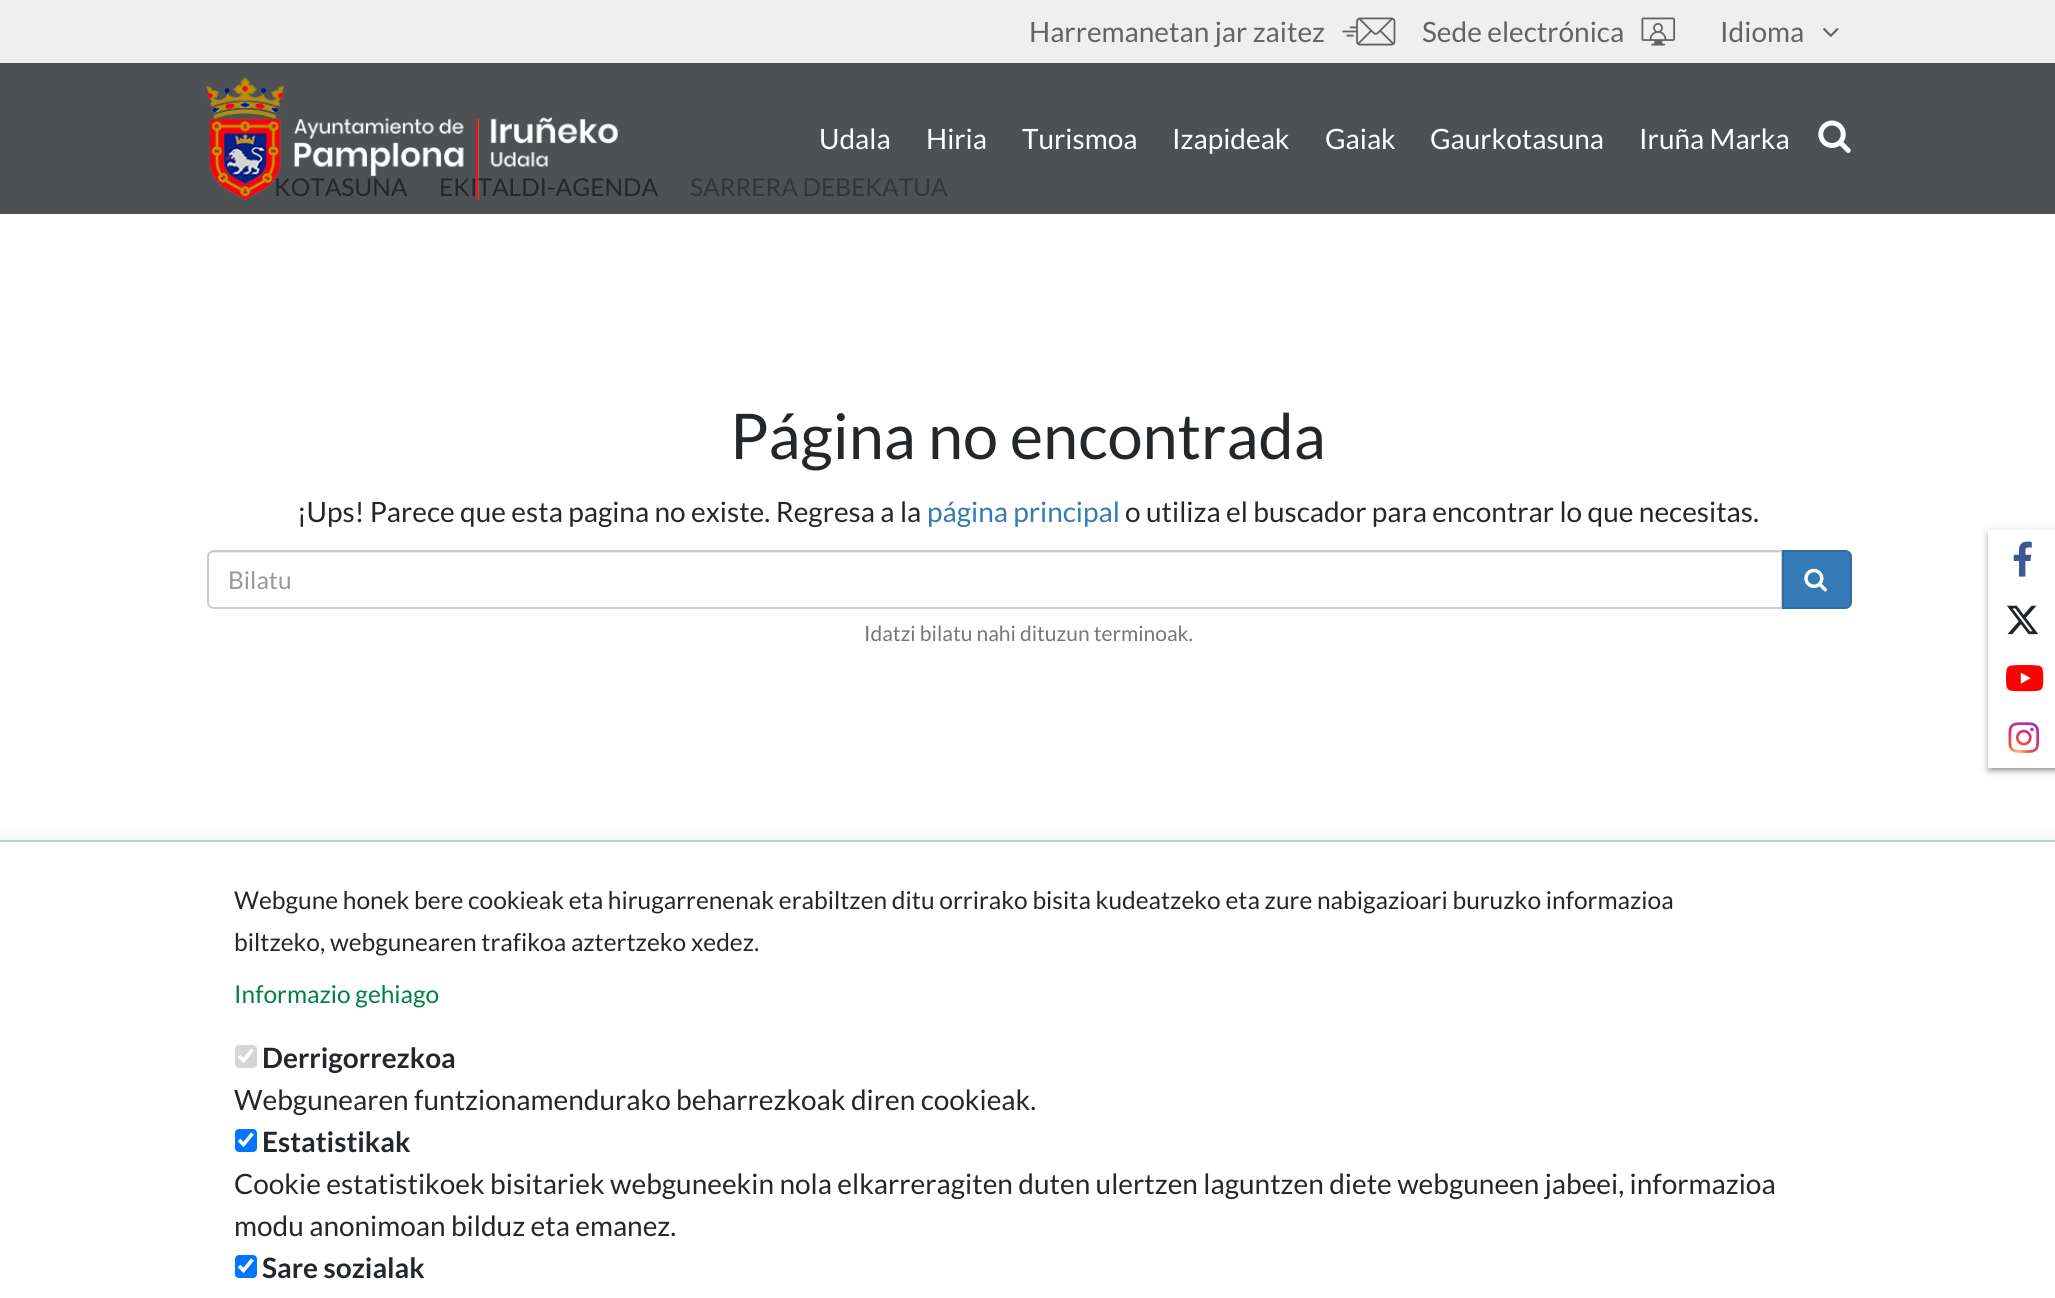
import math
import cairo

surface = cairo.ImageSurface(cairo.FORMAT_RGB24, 2055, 1298)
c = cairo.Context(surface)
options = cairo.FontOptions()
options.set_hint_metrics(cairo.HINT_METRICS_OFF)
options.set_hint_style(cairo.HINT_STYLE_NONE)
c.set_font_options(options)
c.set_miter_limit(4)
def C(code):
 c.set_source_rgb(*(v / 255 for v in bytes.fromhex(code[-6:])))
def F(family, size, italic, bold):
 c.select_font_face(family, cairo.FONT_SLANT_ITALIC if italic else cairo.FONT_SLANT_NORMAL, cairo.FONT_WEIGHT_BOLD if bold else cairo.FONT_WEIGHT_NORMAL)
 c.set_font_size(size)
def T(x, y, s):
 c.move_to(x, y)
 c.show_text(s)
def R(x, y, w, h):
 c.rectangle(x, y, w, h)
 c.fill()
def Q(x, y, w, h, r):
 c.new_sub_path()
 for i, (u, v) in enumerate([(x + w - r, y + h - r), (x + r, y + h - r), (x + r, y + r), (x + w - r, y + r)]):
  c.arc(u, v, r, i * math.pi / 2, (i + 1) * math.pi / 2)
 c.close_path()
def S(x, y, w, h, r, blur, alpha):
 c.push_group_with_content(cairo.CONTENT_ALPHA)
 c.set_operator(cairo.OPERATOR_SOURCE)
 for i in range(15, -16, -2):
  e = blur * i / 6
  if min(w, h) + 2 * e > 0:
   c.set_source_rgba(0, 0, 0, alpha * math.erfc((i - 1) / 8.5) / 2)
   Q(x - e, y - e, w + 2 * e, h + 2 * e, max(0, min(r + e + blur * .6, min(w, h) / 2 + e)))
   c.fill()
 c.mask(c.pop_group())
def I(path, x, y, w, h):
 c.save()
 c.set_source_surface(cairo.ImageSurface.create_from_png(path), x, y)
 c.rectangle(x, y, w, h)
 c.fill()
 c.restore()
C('ffffff')
c.paint()
C('4d5154')
R(0,63,2055,151)
C('efefef')
R(0,0,2055,63)
F('Lato',28,0,0)
C('636363')
T(1029,42,'Harremanetan jar zaitez')
I('1.png',1342,17,54,29)
T(1422,42,'Sede electrónica')
I('2.png',1641,17,35,29)
T(1720,42,'Idioma')
I('3.png',1823,28,16,9)
F('Lato',24.5,0,0)
C('24272a')
T(274,196,'KOTASUNA')
T(439,196,'EKITALDI-AGENDA')
I('4.png',206,77,412,123)
F('Lato',28,0,0)
C('ffffff')
T(819,149,'Udala')
T(926,149,'Hiria')
T(1022,149,'Turismoa')
T(1172,149,'Izapideak')
T(1325,149,'Gaiak')
T(1430,149,'Gaurkotasuna')
T(1639,149,'Iruña Marka')
I('5.png',1818,120,33,33)
F('Lato',24.5,0,0)
C('323539')
T(690,196,'SARRERA DEBEKATUA')
F('Lato',63,0,0)
C('24272a')
T(730,459,'Página no encontrada')
F('Lato',28,0,0)
T(297,522,'¡Ups! Parece que esta pagina no existe. Regresa a la')
C('337ab7')
T(927,522,'página principal')
C('24272a')
T(1125,522,'o utiliza el buscador para encontrar lo que necesitas.')
C('ececec')
c.new_path()
c.move_to(214,553)
c.line_to(1782,553)
c.line_to(1782,551)
c.line_to(213,551)
c.curve_to(209,551,208,555,208,558)
c.curve_to(208,555,211,553,214,553)
c.close_path()
c.fill()
c.new_path()
c.move_to(214,551)
c.line_to(1782,551)
c.line_to(1782,608)
c.line_to(214,608)
c.curve_to(210.5,608,208,605.5,208,602)
c.line_to(208,557)
c.curve_to(208,553.5,210.5,551,214,551)
c.close_path()
C('cccccc')
c.stroke()
F('Lato',24.5,0,0)
C('999999')
T(228,589,'Bilatu')
C('337ab7')
c.new_path()
c.move_to(1783,551)
c.line_to(1845,551)
c.curve_to(1848.5,551,1851,553.5,1851,557)
c.line_to(1851,602)
c.curve_to(1851,605.5,1848.5,608,1845,608)
c.line_to(1783,608)
c.close_path()
c.fill_preserve()
C('2e6da4')
c.stroke()
I('6.png',1804,568,23,24)
F('Lato',21,0,0)
C('777777')
T(864,641,'Idatzi bilatu nahi dituzun terminoak.')
c.save()
c.set_fill_rule(cairo.FILL_RULE_EVEN_ODD)
c.new_path()
c.move_to(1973,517)
c.line_to(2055,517)
c.line_to(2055,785)
c.line_to(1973,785)
c.close_path()
c.move_to(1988,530)
c.line_to(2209,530)
c.line_to(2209,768)
c.line_to(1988,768)
c.close_path()
c.clip()
C('000000')
S(1988,532,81,238,0,4.5,.2)
c.restore()
c.save()
c.rectangle(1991,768,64,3)
c.clip()
C('000000')
S(1992,539,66,231,0,1,.12)
c.restore()
c.save()
c.set_fill_rule(cairo.FILL_RULE_EVEN_ODD)
c.new_path()
c.move_to(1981,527)
c.line_to(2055,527)
c.line_to(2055,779)
c.line_to(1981,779)
c.close_path()
c.move_to(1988,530)
c.line_to(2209,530)
c.line_to(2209,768)
c.line_to(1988,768)
c.close_path()
c.clip()
C('000000')
S(1988,534,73,238,0,2,.14)
c.restore()
C('ffffff')
R(1988,530,67,1)
I('7.png',2013,541,19,36)
I('8.png',2007,605,32,30)
I('9.png',2006,665,38,27)
I('10.png',2008,722,32,31)
C('000000')
S(0,842,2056,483,0,9,.12)
C('ffffff')
R(0,842,2055,456)
C('b3d9c7')
R(0,840,2055,2)
F('Lato',24.5,0,0)
C('24272a')
T(234,909,'Webgune honek bere cookieak eta hirugarrenenak erabiltzen ditu orrirako bisita kudeatzeko eta zure nabigazioari buruzko informazioa')
T(234,951,'biltzeko, webgunearen trafikoa aztertzeko xedez.')
C('008044')
T(234,1003,'Informazio gehiago')
C('d6d6d6')
Q(235,1045,22,23,4)
c.fill()
c.new_path()
c.move_to(239,1056)
c.line_to(243.5,1060.5)
c.line_to(252.5,1049.5)
C('ffffff')
c.set_line_width(3.6)
c.stroke()
F('Lato',28,0,1)
C('24272a')
T(262,1068,'Derrigorrezkoa')
F('Lato',28,0,0)
T(234,1110,'Webgunearen funtzionamendurako beharrezkoak diren cookieak.')
C('0075ff')
Q(235,1129,22,23,4)
c.fill()
c.new_path()
c.move_to(239,1140)
c.line_to(243.5,1144.5)
c.line_to(252.5,1133.5)
C('ffffff')
c.stroke()
F('Lato',28,0,1)
C('24272a')
T(262,1152,'Estatistikak')
F('Lato',28,0,0)
T(234,1194,'Cookie estatistikoek bisitariek webguneekin nola elkarreragiten duten ulertzen laguntzen diete webguneen jabeei, informazioa')
T(234,1236,'modu anonimoan bilduz eta emanez.')
C('0075ff')
Q(235,1255,22,23,4)
c.fill()
c.new_path()
c.move_to(239,1266)
c.line_to(243.5,1270.5)
c.line_to(252.5,1259.5)
C('ffffff')
c.stroke()
F('Lato',28,0,1)
C('24272a')
T(262,1278,'Sare sozialak')
surface.write_to_png('o.png')
